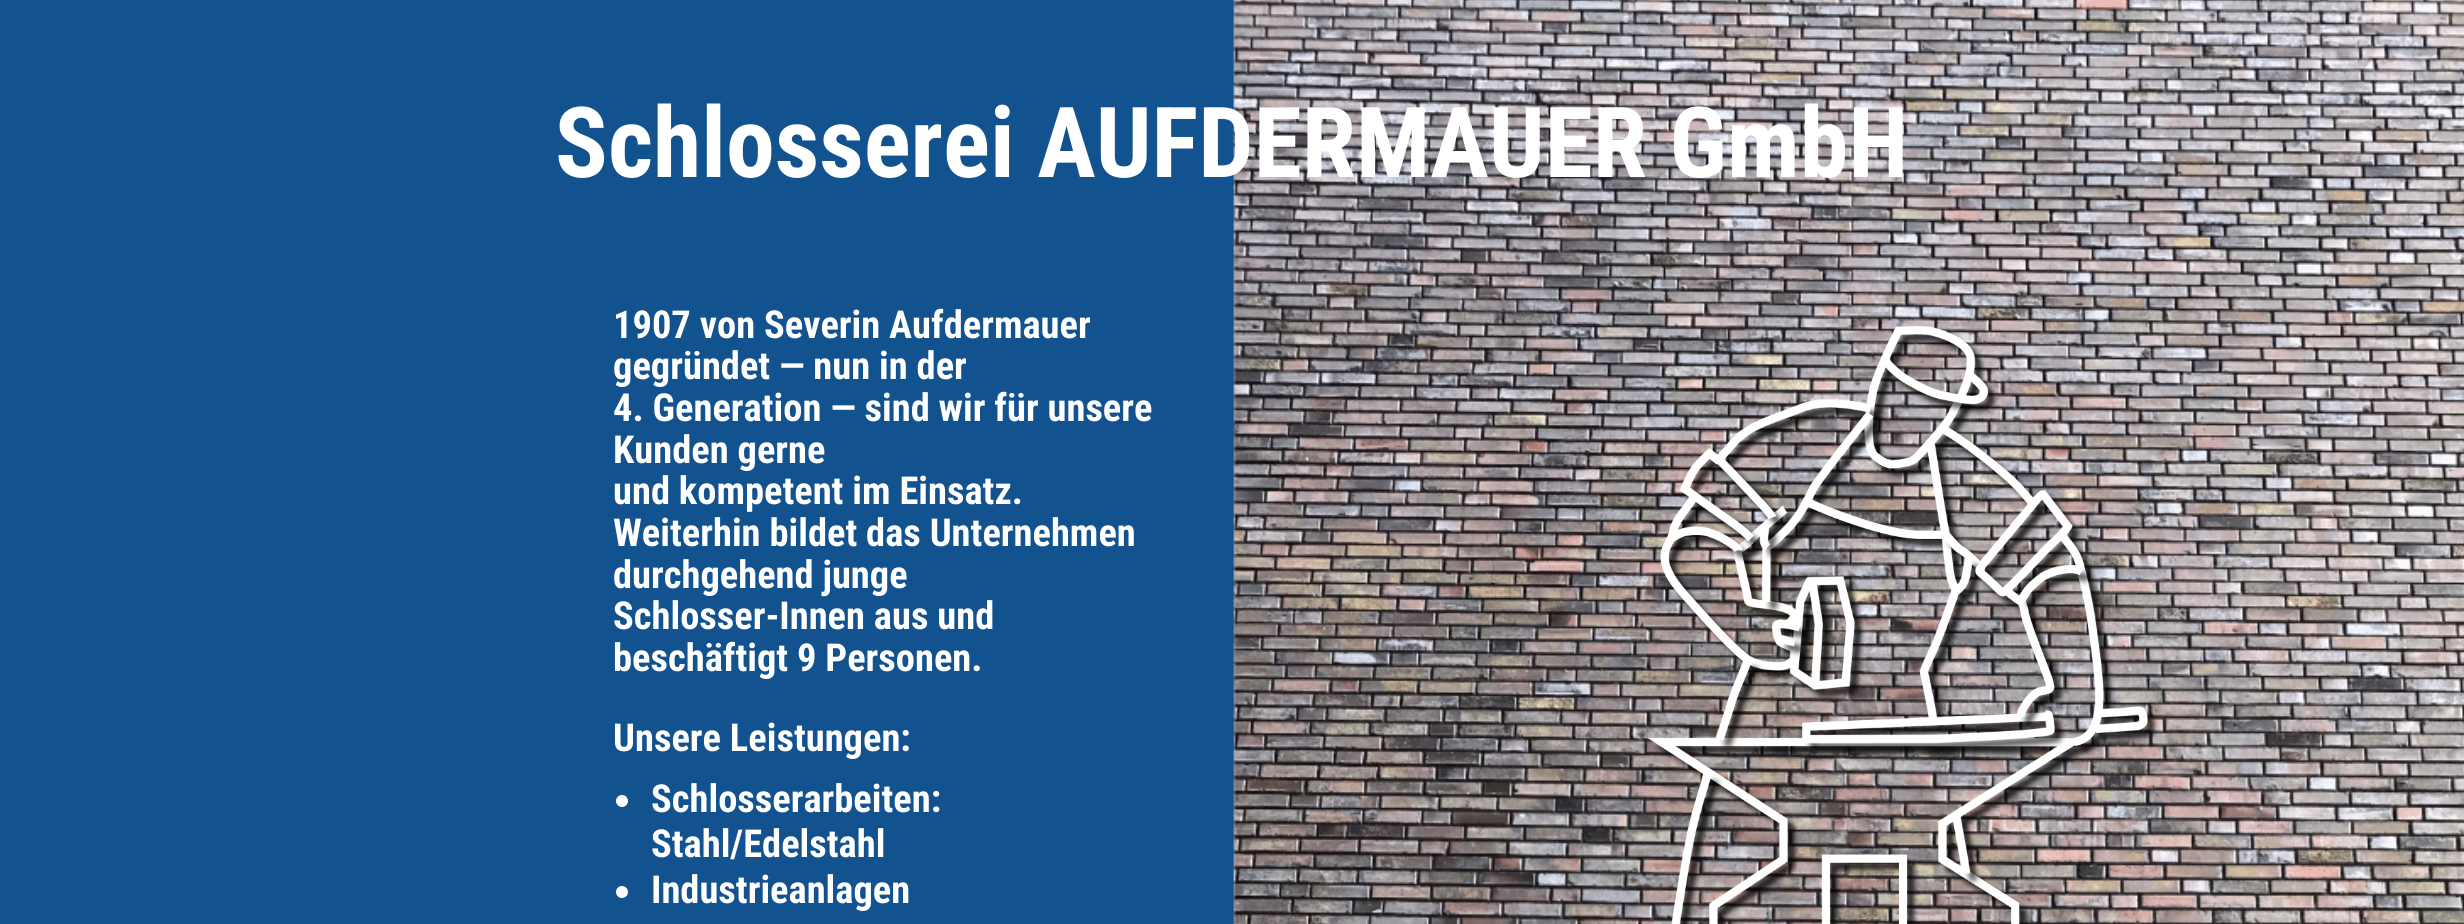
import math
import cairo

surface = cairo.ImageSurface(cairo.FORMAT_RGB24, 2464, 924)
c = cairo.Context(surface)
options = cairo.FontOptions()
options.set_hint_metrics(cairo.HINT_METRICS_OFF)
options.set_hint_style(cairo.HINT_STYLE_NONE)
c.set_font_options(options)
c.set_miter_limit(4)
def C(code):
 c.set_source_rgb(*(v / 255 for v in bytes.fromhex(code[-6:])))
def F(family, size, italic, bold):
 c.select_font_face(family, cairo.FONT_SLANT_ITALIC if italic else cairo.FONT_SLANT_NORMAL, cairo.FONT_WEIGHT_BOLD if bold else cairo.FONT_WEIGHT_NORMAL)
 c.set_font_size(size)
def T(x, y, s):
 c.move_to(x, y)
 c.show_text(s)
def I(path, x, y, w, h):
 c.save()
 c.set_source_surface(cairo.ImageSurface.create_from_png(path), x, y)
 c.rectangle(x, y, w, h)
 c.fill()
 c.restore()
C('ffffff')
c.paint()
I('1.png',0,0,2464,924)
F('Roboto Condensed',98,0,1)
C('ffffff')
T(555,177,'Schlosserei AUFDERMAUER GmbH')
F('Roboto Condensed',38.5,0,1)
T(613,338,'1907 von Severin Aufdermauer')
T(613,379,'gegründet — nun in der')
T(613,421,'4. Generation — sind wir für unsere')
T(613,463,'Kunden gerne')
T(613,504,'und kompetent im Einsatz.')
T(613,546,'Weiterhin bildet das Unternehmen')
T(613,588,'durchgehend junge')
T(613,629,'Schlosser-Innen aus und')
T(613,671,'beschäftigt 9 Personen.')
T(613,751,'Unsere Leistungen:')
c.new_path()
c.arc(622,801,6,0,2 * math.pi)
c.fill()
T(651,812,'Schlosserarbeiten:')
T(651,857,'Stahl/Edelstahl')
c.new_path()
c.arc(622,892,6,0,2 * math.pi)
c.fill()
T(651,903,'Industrieanlagen')
I('2.png',1647,325,512,599)
surface.write_to_png('o.png')
